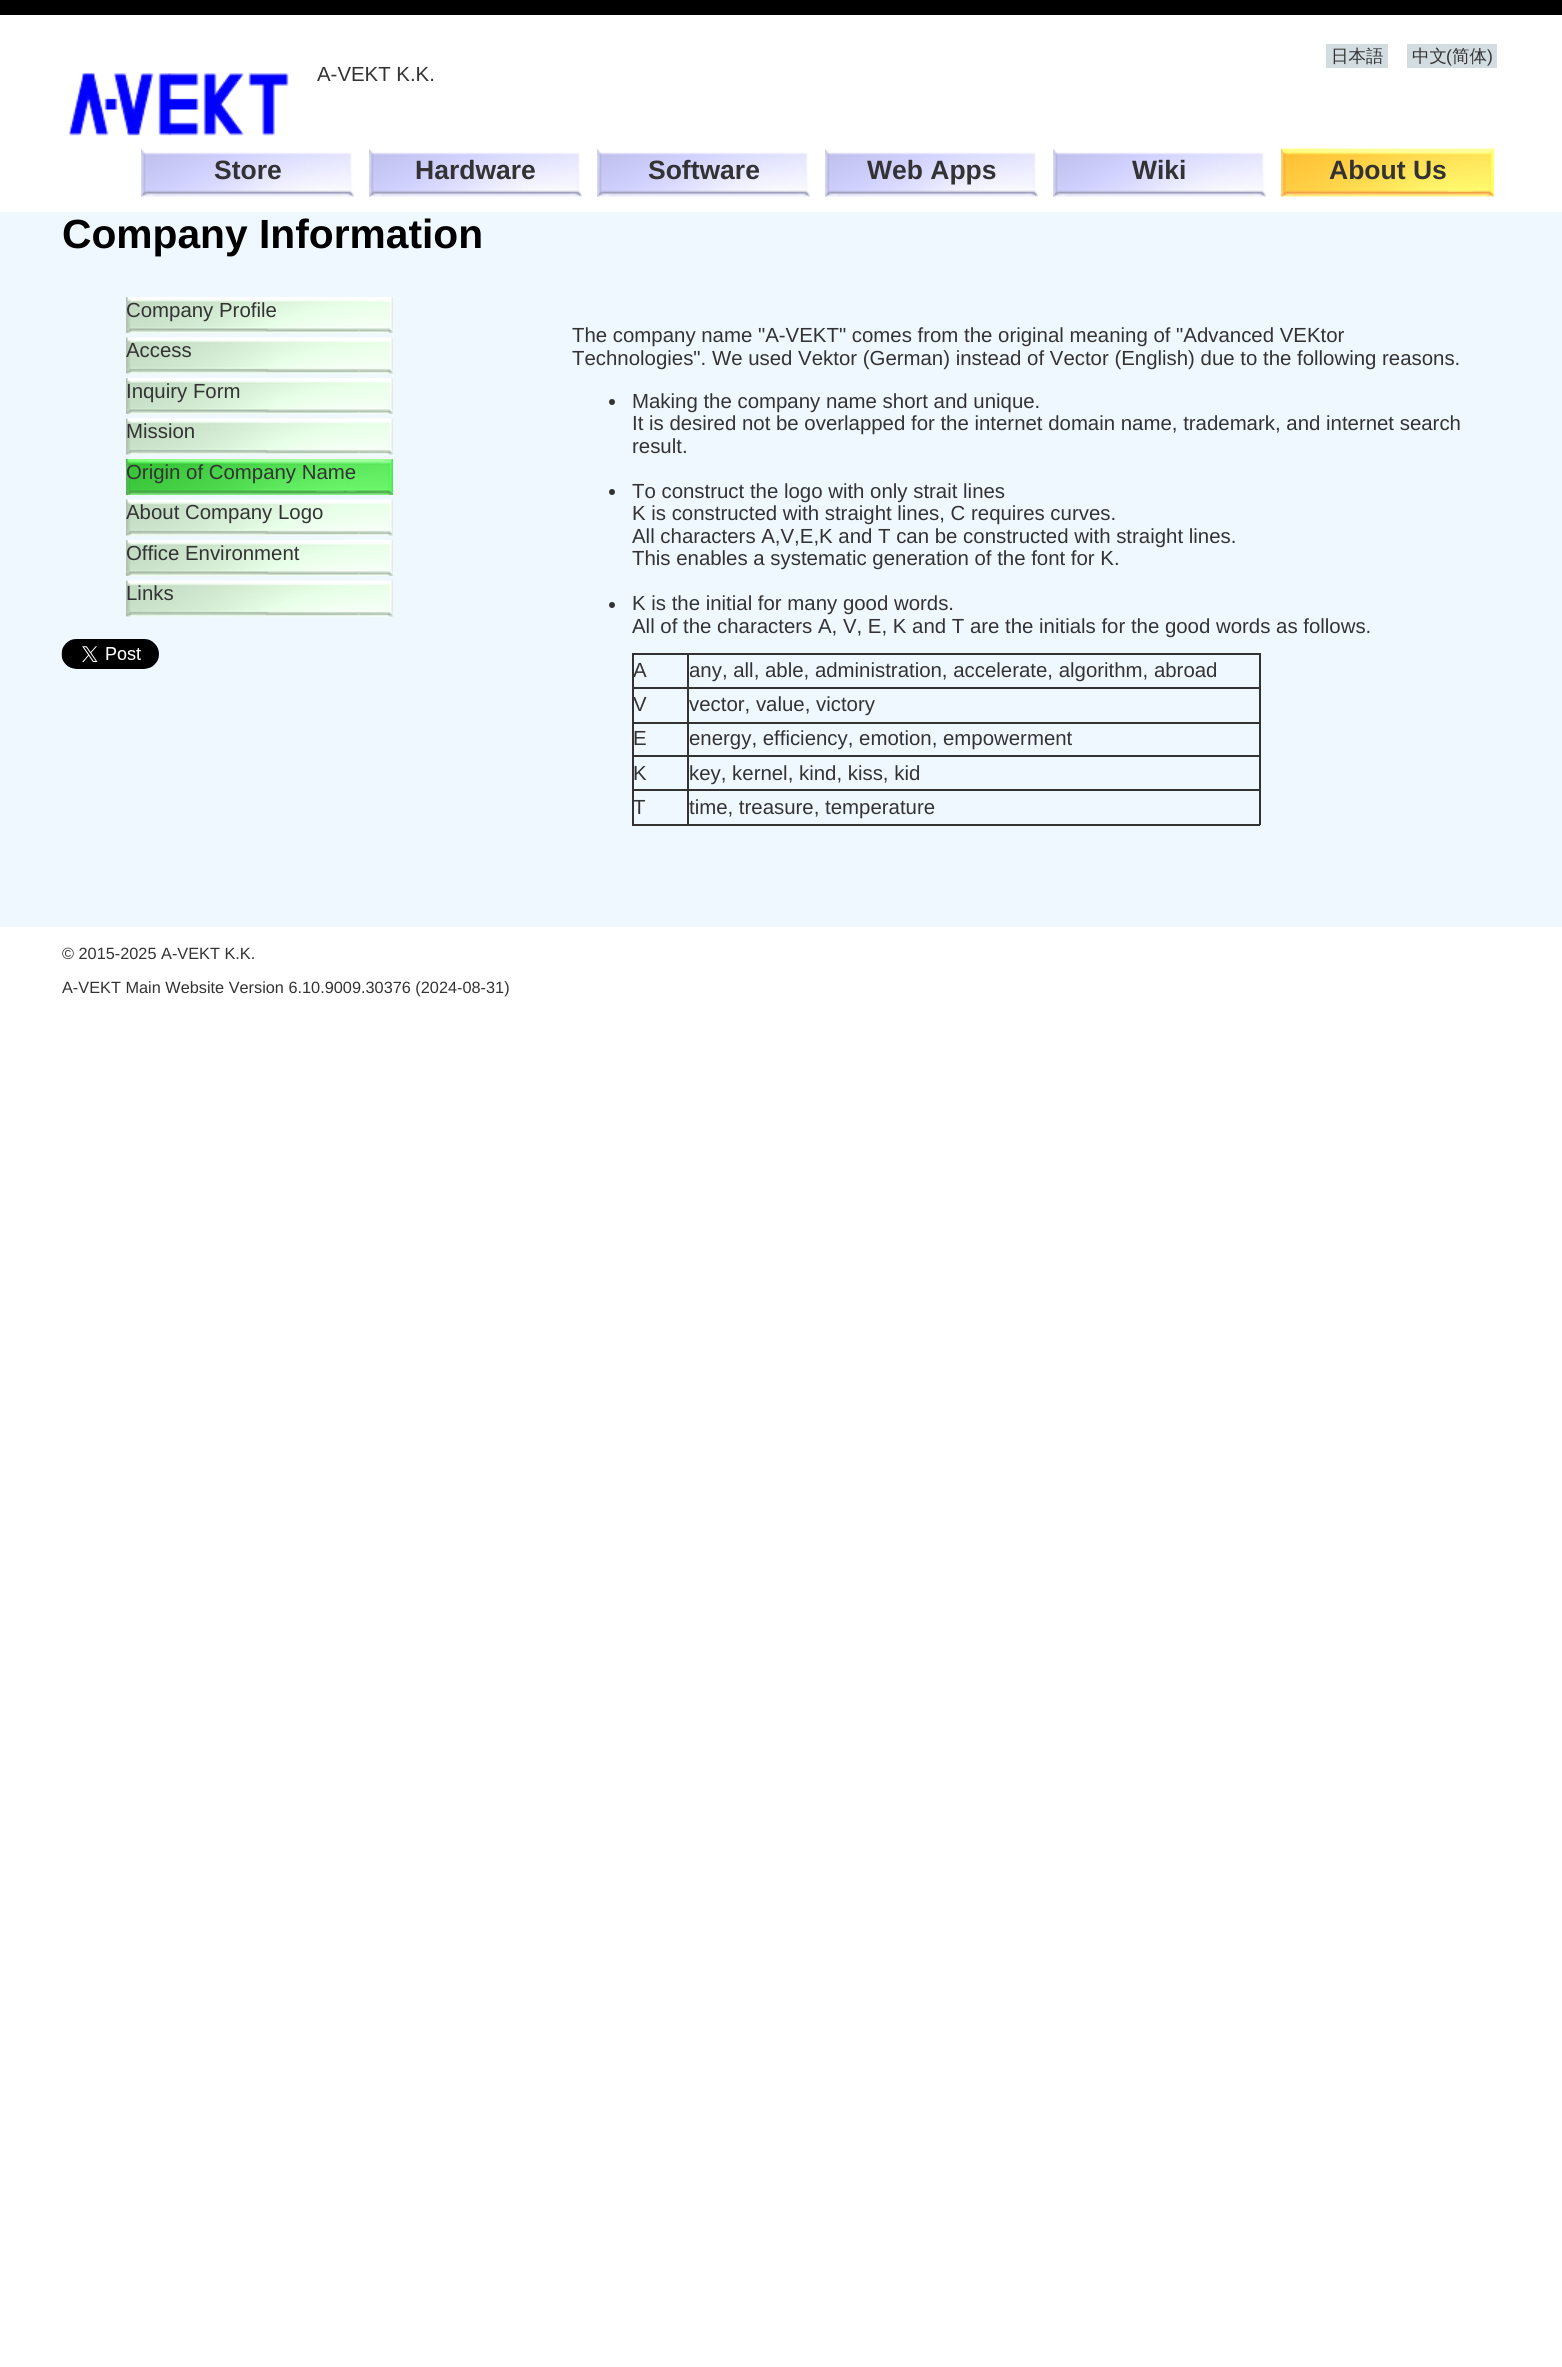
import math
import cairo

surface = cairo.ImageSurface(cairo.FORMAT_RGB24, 1562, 2367)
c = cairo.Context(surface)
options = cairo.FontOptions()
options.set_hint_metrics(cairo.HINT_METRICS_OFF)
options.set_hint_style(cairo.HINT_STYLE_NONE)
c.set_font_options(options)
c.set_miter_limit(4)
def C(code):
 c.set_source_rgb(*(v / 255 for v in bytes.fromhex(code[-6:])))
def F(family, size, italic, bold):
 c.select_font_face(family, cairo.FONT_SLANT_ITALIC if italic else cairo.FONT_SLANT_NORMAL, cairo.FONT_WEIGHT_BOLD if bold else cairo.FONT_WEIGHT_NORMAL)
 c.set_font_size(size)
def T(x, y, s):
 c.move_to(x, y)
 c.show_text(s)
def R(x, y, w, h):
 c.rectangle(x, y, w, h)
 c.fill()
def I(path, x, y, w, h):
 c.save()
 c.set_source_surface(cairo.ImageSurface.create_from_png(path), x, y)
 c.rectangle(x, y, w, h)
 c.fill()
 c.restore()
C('ffffff')
c.paint()
C('000000')
R(0,0,1562,15)
C('d3dce0')
R(1326,44,62,24)
F('WenQuanYi Zen Hei Medium',17.5,0,0)
C('333333')
T(1331,62,'日本語')
C('d3dce0')
R(1407,44,90,24)
C('333333')
T(1412,62,'中文')
F('Liberation Sans',17.5,0,0)
T(1446,62,'(')
F('WenQuanYi Zen Hei Medium',17.5,0,0)
T(1452,62,'简体')
F('Liberation Sans',17.5,0,0)
T(1487,62,')')
I('1.png',68,73,221,63)
F('Liberation Sans',20.4,0,0)
T(317,81,'A-VEKT K.K.')
I('2.png',141,148,213,49)
F('Liberation Sans',26.5,0,1)
T(214,179,'Store')
I('3.png',369,148,213,49)
T(415,179,'Hardware')
I('4.png',597,148,213,49)
T(648,179,'Software')
I('2.png',825,148,213,49)
T(867,179,'Web Apps')
I('4.png',1053,148,213,49)
T(1132,179,'Wiki')
I('5.png',1281,148,213,49)
T(1329,179,'About Us')
C('f0f8ff')
R(0,212,1562,715)
F('Liberation Sans',40.75,0,1)
C('000000')
T(62,248,'Company Information')
I('6.png',61,639,98,30)
I('7.png',126,297,267,36)
F('Liberation Sans',20.4,0,0)
C('333333')
T(126,317,'Company Profile')
I('8.png',126,337,267,37)
T(126,357,'Access')
I('7.png',126,378,267,36)
T(126,398,'Inquiry Form')
I('8.png',126,418,267,37)
T(126,438,'Mission')
I('9.png',126,459,267,36)
T(126,479,'Origin of Company Name')
I('8.png',126,499,267,37)
T(126,519,'About Company Logo')
I('7.png',126,540,267,36)
T(126,560,'Office Environment')
I('8.png',126,580,267,37)
T(126,600,'Links')
T(572,342,'The company name "A-VEKT" comes from the original meaning of "Advanced VEKtor')
T(572,365,'Technologies". We used Vektor (German) instead of Vector (English) due to the following reasons.')
c.new_path()
c.arc(612,402,3,0,2 * math.pi)
c.fill()
T(632,408,'Making the company name short and unique.')
T(632,430,'It is desired not be overlapped for the internet domain name, trademark, and internet search')
T(632,453,'result.')
c.new_path()
c.arc(612,492,3,0,2 * math.pi)
c.fill()
T(632,498,'To construct the logo with only strait lines')
T(632,520,'K is constructed with straight lines, C requires curves.')
T(632,543,'All characters A,V,E,K and T can be constructed with straight lines.')
T(632,565,'This enables a systematic generation of the font for K.')
c.new_path()
c.arc(612,605,3,0,2 * math.pi)
c.fill()
T(632,610,'K is the initial for many good words.')
T(632,633,'All of the characters A, V, E, K and T are the initials for the good words as follows.')
R(632,653,628,2)
R(1259,653,2,172)
R(632,824,628,2)
R(632,653,2,172)
T(633,677,'A')
R(687,687,573,2)
R(687,722,573,2)
R(687,755,573,2)
R(687,789,573,2)
R(687,789,2,36)
R(632,789,57,2)
R(687,755,2,36)
R(632,755,57,2)
R(687,722,2,34)
R(632,722,57,2)
R(687,687,2,36)
R(632,687,57,2)
R(687,653,2,36)
T(689,677,'any, all, able, administration, accelerate, algorithm, abroad')
T(633,711,'V')
T(689,711,'vector, value, victory')
T(633,745,'E')
T(689,745,'energy, efficiency, emotion, empowerment')
T(633,780,'K')
T(689,780,'key, kernel, kind, kiss, kid')
T(633,814,'T')
T(689,814,'time, treasure, temperature')
F('Liberation Sans',16.3,0,0)
T(62,959,'© 2015-2025 A-VEKT K.K.')
T(62,993,'A-VEKT Main Website Version 6.10.9009.30376 (2024-08-31)')
surface.write_to_png('o.png')
